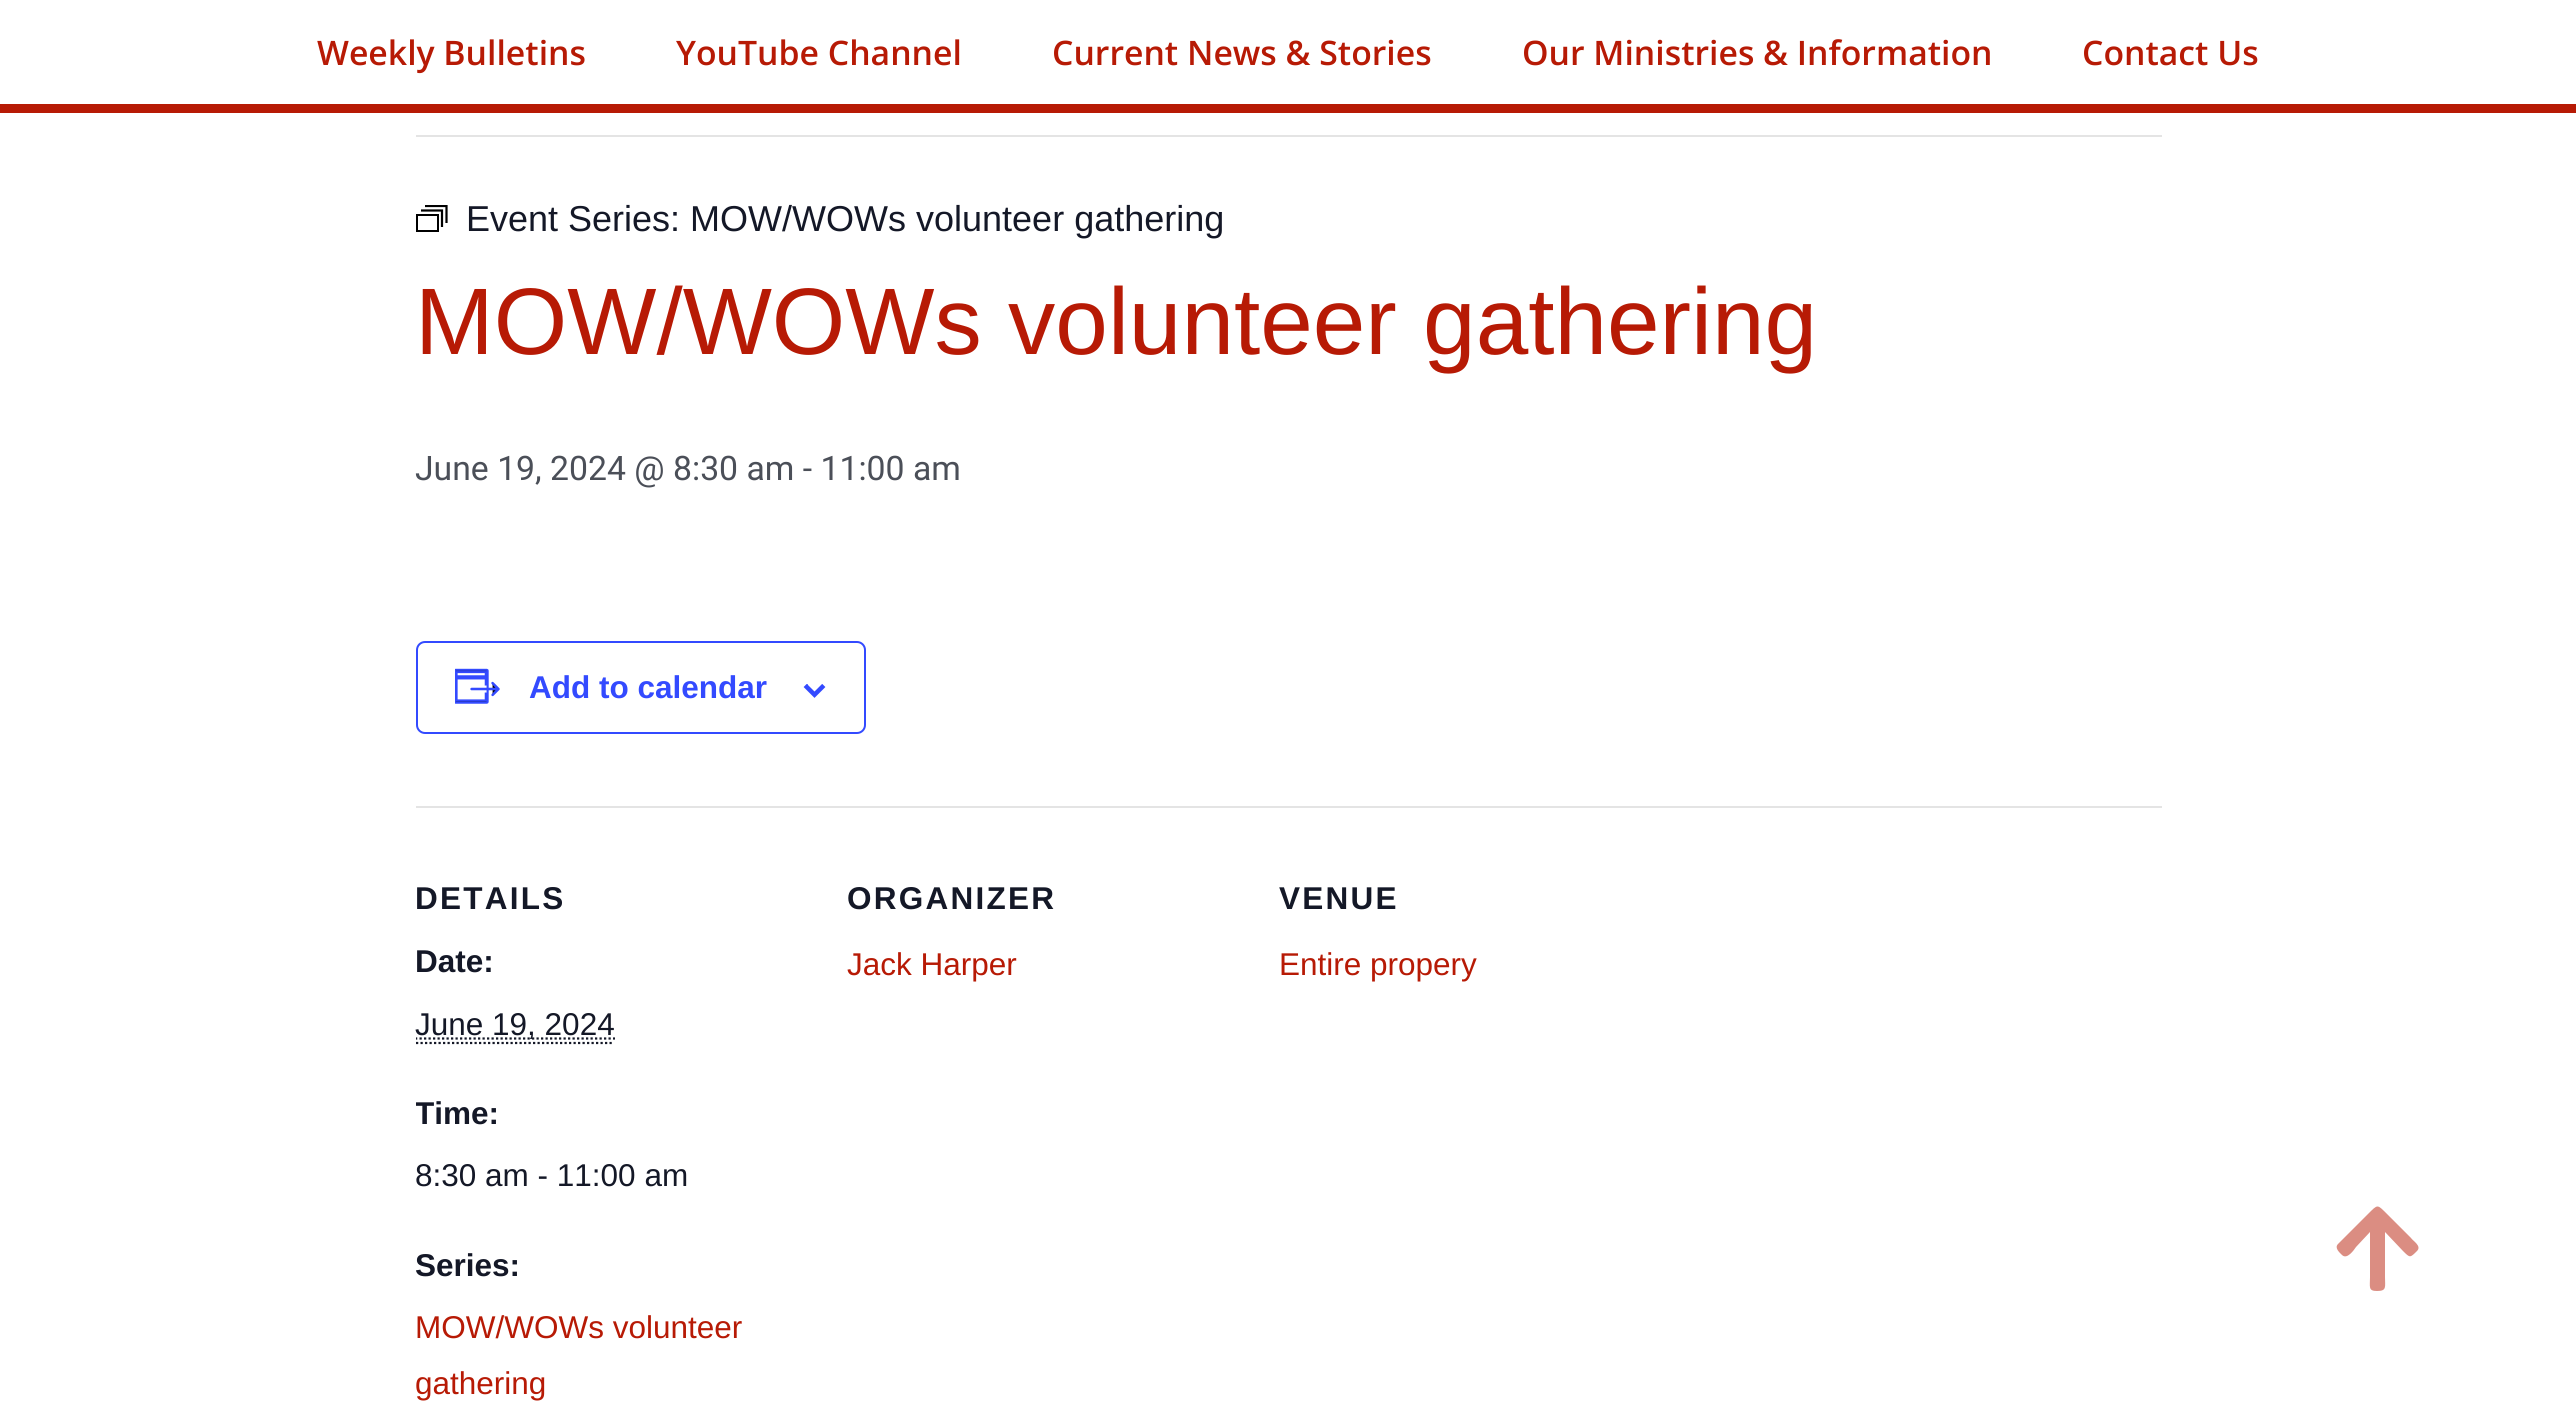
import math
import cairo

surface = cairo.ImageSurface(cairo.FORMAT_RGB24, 2576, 1401)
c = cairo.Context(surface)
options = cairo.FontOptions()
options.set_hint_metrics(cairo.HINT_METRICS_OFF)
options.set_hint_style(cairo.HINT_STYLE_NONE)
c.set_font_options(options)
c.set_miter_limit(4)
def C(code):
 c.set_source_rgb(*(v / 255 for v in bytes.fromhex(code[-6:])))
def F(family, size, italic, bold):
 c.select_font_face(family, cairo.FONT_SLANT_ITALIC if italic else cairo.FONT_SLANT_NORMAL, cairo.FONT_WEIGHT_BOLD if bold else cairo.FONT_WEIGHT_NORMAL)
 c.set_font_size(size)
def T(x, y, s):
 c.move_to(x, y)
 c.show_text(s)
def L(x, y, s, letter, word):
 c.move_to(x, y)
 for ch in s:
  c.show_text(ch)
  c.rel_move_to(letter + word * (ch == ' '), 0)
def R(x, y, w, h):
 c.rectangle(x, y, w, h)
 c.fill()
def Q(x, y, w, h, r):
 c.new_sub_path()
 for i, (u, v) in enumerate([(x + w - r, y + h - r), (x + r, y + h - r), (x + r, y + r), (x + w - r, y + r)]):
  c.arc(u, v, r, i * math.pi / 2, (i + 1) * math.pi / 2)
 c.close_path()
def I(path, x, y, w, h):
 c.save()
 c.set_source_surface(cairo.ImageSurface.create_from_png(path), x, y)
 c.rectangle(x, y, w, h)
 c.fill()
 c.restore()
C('ffffff')
c.paint()
C('b71a05')
R(0,104,2576,9)
F('Open Sans SemiBold',33.75,0,0)
T(317,65,'Weekly Bulletins')
T(676,65,'YouTube Channel')
T(1052,65,'Current News & Stories')
T(1522,65,'Our Ministries & Information')
T(2082,65,'Contact Us')
C('e4e4e4')
R(416,135,1746,2)
c.rectangle(417,215,21,16)
C('000000')
c.stroke()
c.new_path()
c.move_to(421,210.5)
c.line_to(442,210.5)
c.line_to(442,227)
c.set_line_width(2.2)
c.stroke()
c.save()
c.rectangle(416,205,32,27)
c.clip()
c.new_path()
c.move_to(425,206)
c.line_to(446.5,206)
c.line_to(446.5,223)
c.stroke()
c.restore()
F('Liberation Sans',36,0,0)
C('141827')
T(466,231,'Event Series: MOW/WOWs volunteer gathering')
F('Liberation Sans',94.5,0,0)
C('b71a05')
T(415,354,'MOW/WOWs volunteer gathering')
F('Roboto',33.75,0,0)
C('4b4f58')
T(415,480,'June 19, 2024 @ 8:30 am - 11:00 am')
Q(417,642,448,91,8)
C('334aff')
c.set_line_width(2)
c.stroke()
I('1.png',455,668,45,36)
F('Liberation Sans',31.5,0,1)
T(529,698,'Add to calendar')
I('2.png',803,684,23,14)
C('e4e4e4')
R(416,806,1746,2)
C('141827')
L(415,909,'DETAILS',2.25,0)
T(415,972,'Date:')
c.save()
c.rectangle(416,569,1746,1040)
c.clip()
c.new_path()
c.move_to(415,1038.5)
c.line_to(615,1038.5)
c.set_line_width(2.2)
c.set_dash([2.25,2.25])
c.stroke()
c.restore()
F('Liberation Sans',31.5,0,0)
T(415,1035,'June 19, 2024')
c.new_path()
c.move_to(416,1043)
c.line_to(614,1043)
c.set_line_width(2.2)
c.set_dash([2.25,2.25])
c.stroke()
c.save()
c.rectangle(416,569,1746,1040)
c.clip()
F('Liberation Sans',31.5,0,1)
T(415,1124,'Time:')
c.restore()
T(415,1186,'8:30 am - 11:00 am')
F('Liberation Sans',31.5,0,1)
T(415,1276,'Series:')
F('Liberation Sans',31.5,0,0)
C('b71a05')
T(415,1338,'MOW/WOWs volunteer')
T(415,1394,'gathering')
F('Liberation Sans',31.5,0,1)
C('141827')
L(847,909,'ORGANIZER',2.25,0)
F('Liberation Sans',31.5,0,0)
C('b71a05')
T(847,975,'Jack Harper')
F('Liberation Sans',31.5,0,1)
C('141827')
L(1279,909,'VENUE',2.25,0)
F('Liberation Sans',31.5,0,0)
C('b71a05')
T(1279,975,'Entire propery')
C('db8d82')
c.new_path()
c.move_to(2342,1255)
c.curve_to(2340,1253,2334,1248,2338,1244)
c.line_to(2368,1214)
c.curve_to(2378,1204,2377,1204,2387,1214)
c.line_to(2411,1238)
c.curve_to(2413,1241,2422,1246,2417,1251)
c.curve_to(2410,1258,2410,1258,2403,1251)
c.line_to(2385,1232)
c.line_to(2385,1277)
c.curve_to(2385,1287,2387,1291,2377,1291)
c.curve_to(2368,1291,2370,1287,2370,1277)
c.line_to(2370,1232)
c.line_to(2356,1247)
c.curve_to(2354,1250,2347,1260,2342,1255)
c.close_path()
c.fill()
surface.write_to_png('o.png')
